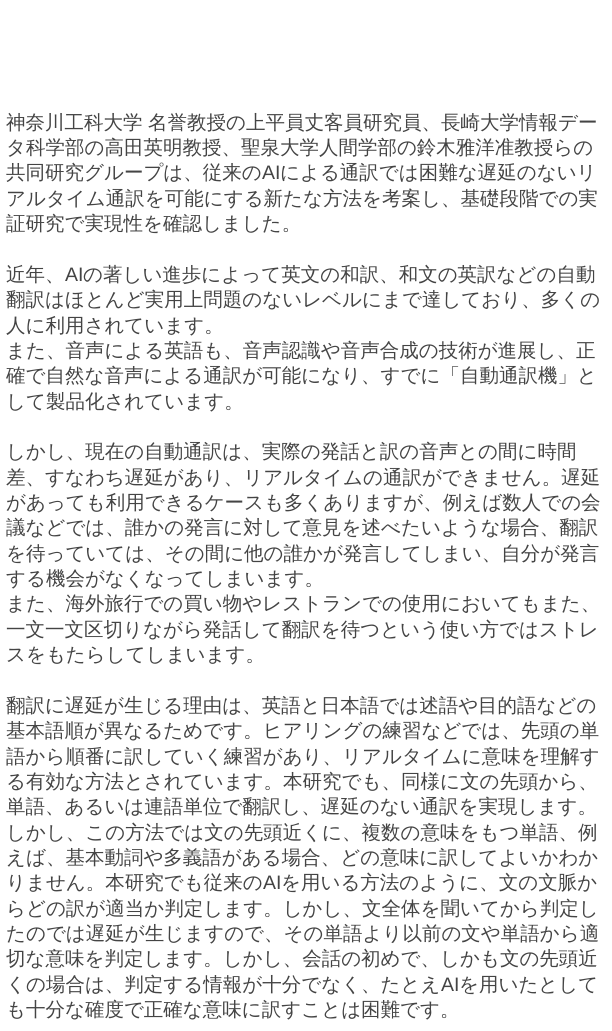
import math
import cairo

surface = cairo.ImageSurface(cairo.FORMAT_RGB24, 612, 1031)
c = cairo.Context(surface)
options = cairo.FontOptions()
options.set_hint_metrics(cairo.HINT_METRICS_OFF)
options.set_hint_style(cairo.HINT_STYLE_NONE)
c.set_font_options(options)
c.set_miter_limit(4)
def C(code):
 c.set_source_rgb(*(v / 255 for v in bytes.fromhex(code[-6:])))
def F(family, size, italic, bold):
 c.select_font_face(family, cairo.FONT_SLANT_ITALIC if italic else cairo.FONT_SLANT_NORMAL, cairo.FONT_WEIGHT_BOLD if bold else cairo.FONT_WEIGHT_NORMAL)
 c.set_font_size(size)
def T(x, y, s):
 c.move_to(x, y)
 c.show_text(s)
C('ffffff')
c.paint()
F('WenQuanYi Zen Hei Medium',19.5,0,0)
C('444444')
T(6,129,'神奈川工科大学')
T(148,129,'名誉教授の上平員丈客員研究員、長崎大学情報デー')
T(6,154,'タ科学部の高田英明教授、聖泉大学人間学部の鈴木雅洋准教授らの')
T(6,179,'共同研究グループは、従来の')
F('Liberation Sans',19.5,0,0)
T(262,179,'AI')
F('WenQuanYi Zen Hei Medium',19.5,0,0)
T(280,179,'による通訳では困難な遅延のないリ')
T(6,205,'アルタイム通訳を可能にする新たな方法を考案し、基礎段階での実')
T(6,230,'証研究で実現性を確認しました。')
T(6,281,'近年、')
F('Liberation Sans',19.5,0,0)
T(65,281,'AI')
F('WenQuanYi Zen Hei Medium',19.5,0,0)
T(83,281,'の著しい進歩によって英文の和訳、和文の英訳などの自動')
T(6,306,'翻訳はほとんど実用上問題のないレベルにまで達しており、多くの')
T(6,332,'人に利用されています。')
T(6,357,'また、音声による英語も、音声認識や音声合成の技術が進展し、正')
T(6,382,'確で自然な音声による通訳が可能になり、すでに「自動通訳機」と')
T(6,408,'して製品化されています。')
T(6,458,'しかし、現在の自動通訳は、実際の発話と訳の音声との間に時間')
T(6,484,'差、すなわち遅延があり、リアルタイムの通訳ができません。遅延')
T(6,509,'があっても利用できるケースも多くありますが、例えば数人での会')
T(6,534,'議などでは、誰かの発言に対して意見を述べたいような場合、翻訳')
T(6,560,'を待っていては、その間に他の誰かが発言してしまい、自分が発言')
T(6,585,'する機会がなくなってしまいます。')
T(6,610,'また、海外旅行での買い物やレストランでの使用においてもまた、')
T(6,636,'一文一文区切りながら発話して翻訳を待つという使い方ではストレ')
T(6,661,'スをもたらしてしまいます。')
T(6,712,'翻訳に遅延が生じる理由は、英語と日本語では述語や目的語などの')
T(6,737,'基本語順が異なるためです。ヒアリングの練習などでは、先頭の単')
T(6,763,'語から順番に訳していく練習があり、リアルタイムに意味を理解す')
T(6,788,'る有効な方法とされています。本研究でも、同様に文の先頭から、')
T(6,813,'単語、あるいは連語単位で翻訳し、遅延のない通訳を実現します。')
T(6,839,'しかし、この方法では文の先頭近くに、複数の意味をもつ単語、例')
T(6,864,'えば、基本動詞や多義語がある場合、どの意味に訳してよいかわか')
T(6,889,'りません。本研究でも従来の')
F('Liberation Sans',19.5,0,0)
T(263,889,'AI')
F('WenQuanYi Zen Hei Medium',19.5,0,0)
T(281,889,'を用いる方法のように、文の文脈か')
T(6,915,'らどの訳が適当か判定します。しかし、文全体を聞いてから判定し')
T(6,940,'たのでは遅延が生じますので、その単語より以前の文や単語から適')
T(6,965,'切な意味を判定します。しかし、会話の初めで、しかも文の先頭近')
T(6,991,'くの場合は、判定する情報が十分でなく、たとえ')
F('Liberation Sans',19.5,0,0)
T(441,991,'AI')
F('WenQuanYi Zen Hei Medium',19.5,0,0)
T(459,991,'を用いたとして')
T(6,1016,'も十分な確度で正確な意味に訳すことは困難です。')
surface.write_to_png('o.png')
